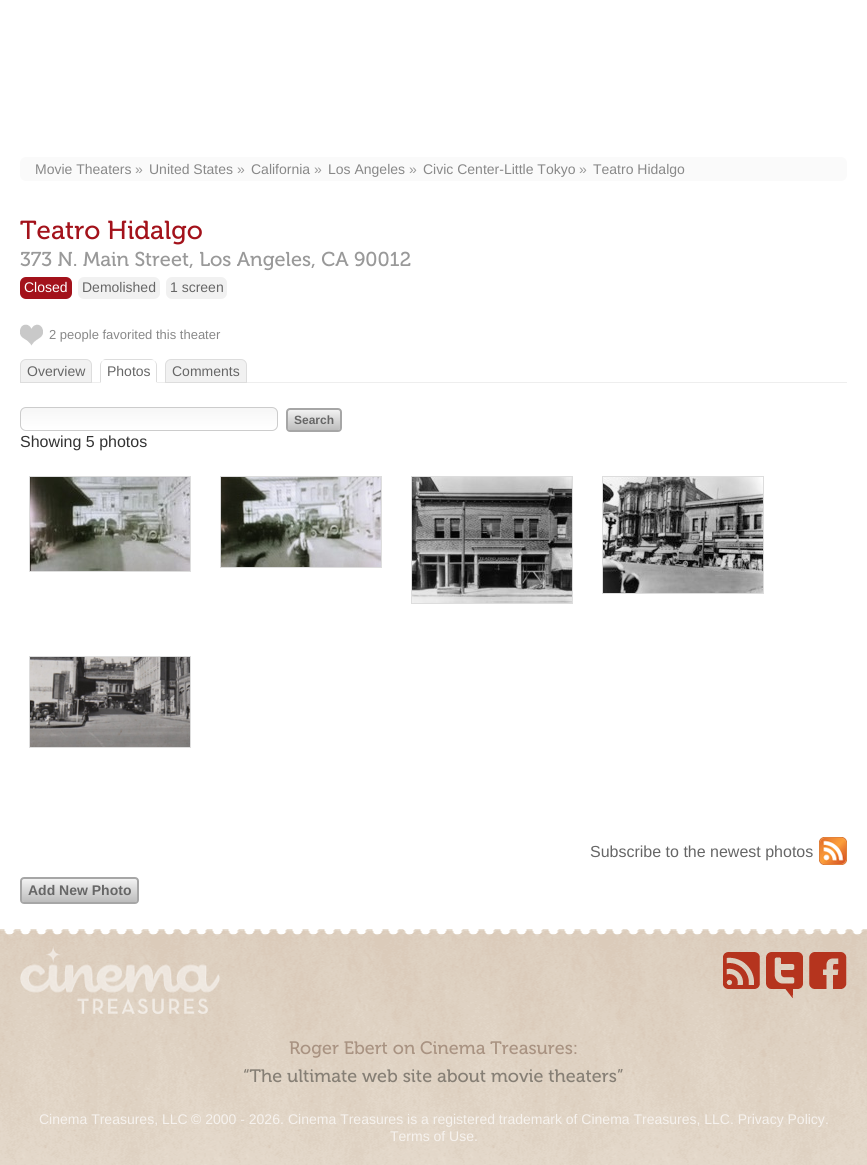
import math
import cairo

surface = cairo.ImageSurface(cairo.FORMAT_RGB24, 867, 1165)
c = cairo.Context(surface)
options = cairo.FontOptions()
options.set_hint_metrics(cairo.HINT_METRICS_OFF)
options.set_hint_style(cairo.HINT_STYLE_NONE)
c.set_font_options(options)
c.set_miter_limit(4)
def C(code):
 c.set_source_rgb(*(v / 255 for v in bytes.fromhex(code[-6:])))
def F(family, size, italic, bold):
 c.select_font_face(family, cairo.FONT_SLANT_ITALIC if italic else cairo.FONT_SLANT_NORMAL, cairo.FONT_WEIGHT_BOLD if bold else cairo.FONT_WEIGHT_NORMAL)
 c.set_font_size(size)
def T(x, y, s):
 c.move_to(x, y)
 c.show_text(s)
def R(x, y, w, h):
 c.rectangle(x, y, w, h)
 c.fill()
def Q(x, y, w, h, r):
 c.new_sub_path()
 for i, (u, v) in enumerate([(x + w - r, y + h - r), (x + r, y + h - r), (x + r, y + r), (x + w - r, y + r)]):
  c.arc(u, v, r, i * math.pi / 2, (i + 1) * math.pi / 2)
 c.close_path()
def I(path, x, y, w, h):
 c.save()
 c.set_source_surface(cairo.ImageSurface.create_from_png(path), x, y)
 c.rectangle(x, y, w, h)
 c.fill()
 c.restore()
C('ffffff')
c.paint()
C('fafafa')
Q(20,157,827,24,6)
c.fill()
F('Liberation Sans',14,0,0)
C('888888')
T(35,174,'Movie Theaters')
C('999999')
T(135,174,'»')
C('888888')
T(149,174,'United States')
C('999999')
T(237,174,'»')
C('888888')
T(251,174,'California')
C('999999')
T(314,174,'»')
C('888888')
T(328,174,'Los Angeles')
C('999999')
T(409,174,'»')
C('888888')
T(423,174,'Civic Center-Little Tokyo')
C('999999')
T(579,174,'»')
C('888888')
T(593,174,'Teatro Hidalgo')
F('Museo',26,0,0)
C('a3121b')
T(20,239,'Teatro Hidalgo')
F('Museo',20,0,0)
C('999999')
T(20,266,'373 N. Main Street, Los Angeles, CA 90012')
C('a3121b')
Q(20,277,52,22,6)
c.fill()
F('Liberation Sans',14,0,0)
C('ffffff')
T(24,292,'Closed')
C('f1f1f1')
Q(78,277,82,22,6)
c.fill()
C('666666')
T(82,292,'Demolished')
C('f1f1f1')
Q(166,277,61,22,6)
c.fill()
C('666666')
T(170,292,'1 screen')
I('1.png',20,324,23,22)
F('Liberation Sans',13,0,0)
C('888888')
T(49,339,'2 people favorited this theater')
C('eeeeee')
R(92,382,755,1)
C('f1f1f1')
c.new_path()
c.move_to(26,359.5)
c.line_to(86,359.5)
c.curve_to(89,359.5,91.5,362,91.5,365)
c.line_to(91.5,382.5)
c.line_to(20.5,382.5)
c.line_to(20.5,365)
c.curve_to(20.5,362,23,359.5,26,359.5)
c.close_path()
c.fill_preserve()
C('dddddd')
c.set_line_width(1)
c.stroke()
F('Liberation Sans',14,0,0)
C('666666')
T(27,376,'Overview')
C('ffffff')
c.new_path()
c.move_to(106,359)
c.line_to(151,359)
c.curve_to(154.5,359,157,361.5,157,365)
c.line_to(157,383)
c.line_to(100,383)
c.line_to(100,365)
c.curve_to(100,361.5,102.5,359,106,359)
c.close_path()
c.fill()
C('dddddd')
c.new_path()
c.move_to(106,359)
c.curve_to(104,359,103,360,102,361)
c.curve_to(103,360,104,360,106,360)
c.line_to(151,360)
c.curve_to(152,360,154,360,155,361)
c.curve_to(154,360,152,359,151,359)
c.close_path()
c.move_to(157,383)
c.line_to(157,365)
c.curve_to(157,363.5,156,362,155,361)
c.line_to(154.5,361.5)
c.curve_to(155.5,362,156,363.5,156,365)
c.line_to(156,382)
c.close_path()
c.fill()
C('666666')
T(107,376,'Photos')
C('ffffff')
c.new_path()
c.move_to(157,383)
c.line_to(156,382)
c.line_to(101,382)
c.line_to(100,383)
c.close_path()
c.fill()
C('dddddd')
c.new_path()
c.move_to(100,383)
c.line_to(101,382)
c.line_to(101,365)
c.curve_to(101,363.5,101.5,362,102.5,361.5)
c.line_to(102,361)
c.curve_to(101,362,100,363.5,100,365)
c.close_path()
c.fill()
C('f1f1f1')
c.new_path()
c.move_to(171,359.5)
c.line_to(241,359.5)
c.curve_to(244,359.5,246.5,362,246.5,365)
c.line_to(246.5,382.5)
c.line_to(165.5,382.5)
c.line_to(165.5,365)
c.curve_to(165.5,362,168,359.5,171,359.5)
c.close_path()
c.fill_preserve()
C('dddddd')
c.stroke()
C('666666')
T(172,376,'Comments')
c.save()
Q(20,407,258,24,6)
c.clip()
gradient = cairo.LinearGradient(149,408,149,430)
gradient.add_color_stop_rgba(0,0.965,0.965,0.965,1)
gradient.add_color_stop_rgba(1,1,1,1,1)
c.set_source(gradient)
R(20,408,258,22)
c.restore()
Q(20.5,407.5,257,23,5.5)
C('cccccc')
c.stroke()
gradient = cairo.LinearGradient(314,410,314,430)
gradient.add_color_stop_rgba(0,0.949,0.949,0.949,1)
gradient.add_color_stop_rgba(1,0.741,0.741,0.741,1)
c.set_source(gradient)
Q(288,410,52,20,2)
c.fill()
Q(287,409,54,22,3)
C('a6a6a6')
c.set_line_width(2)
c.stroke()
F('Liberation Sans',12,0,1)
C('666666')
T(294,424,'Search')
F('Liberation Sans',16,0,0)
C('333333')
T(20,447,'Showing 5 photos')
c.rectangle(29.5,476.5,161,95)
C('dddddd')
c.set_line_width(1)
c.stroke()
I('2.png',30,477,160,94)
c.rectangle(220.5,476.5,161,91)
c.stroke()
I('3.png',221,477,160,90)
c.rectangle(411.5,476.5,161,127)
c.stroke()
I('4.png',412,477,160,126)
c.rectangle(602.5,476.5,161,117)
c.stroke()
I('5.png',603,477,160,116)
c.rectangle(29.5,656.5,161,91)
c.stroke()
I('6.png',30,657,160,90)
C('666666')
T(590,857,'Subscribe to the newest photos')
I('7.png',819,837,28,28)
gradient = cairo.LinearGradient(80,879,80,902)
gradient.add_color_stop_rgba(0,0.949,0.949,0.949,1)
gradient.add_color_stop_rgba(1,0.741,0.741,0.741,1)
c.set_source(gradient)
Q(22,879,115,23,2)
c.fill()
Q(21,878,117,25,3)
C('a6a6a6')
c.set_line_width(2)
c.stroke()
F('Liberation Sans',14,0,1)
C('666666')
T(28,895,'Add New Photo')
I('8.png',0,929,867,236)
I('9.png',20,946,200,68)
I('10.png',723,952,37,37)
I('11.png',766,952,37,46)
I('12.png',809,952,38,37)
F('Museo',18,0,0)
C('a99382')
T(289,1054,'Roger Ebert on Cinema Treasures:')
C('867f75')
T(243,1082,'“The ultimate web site about movie theaters”')
F('Liberation Sans',14,0,0)
C('f6f2ee')
T(39,1124,'Cinema Treasures, LLC')
T(191,1124,'© 2000 - 2026.')
T(288,1124,'Cinema Treasures is a registered trademark of Cinema Treasures, LLC. Privacy Policy')
T(825,1124,'.')
T(390,1141,'Terms of Use.')
surface.write_to_png('o.png')
